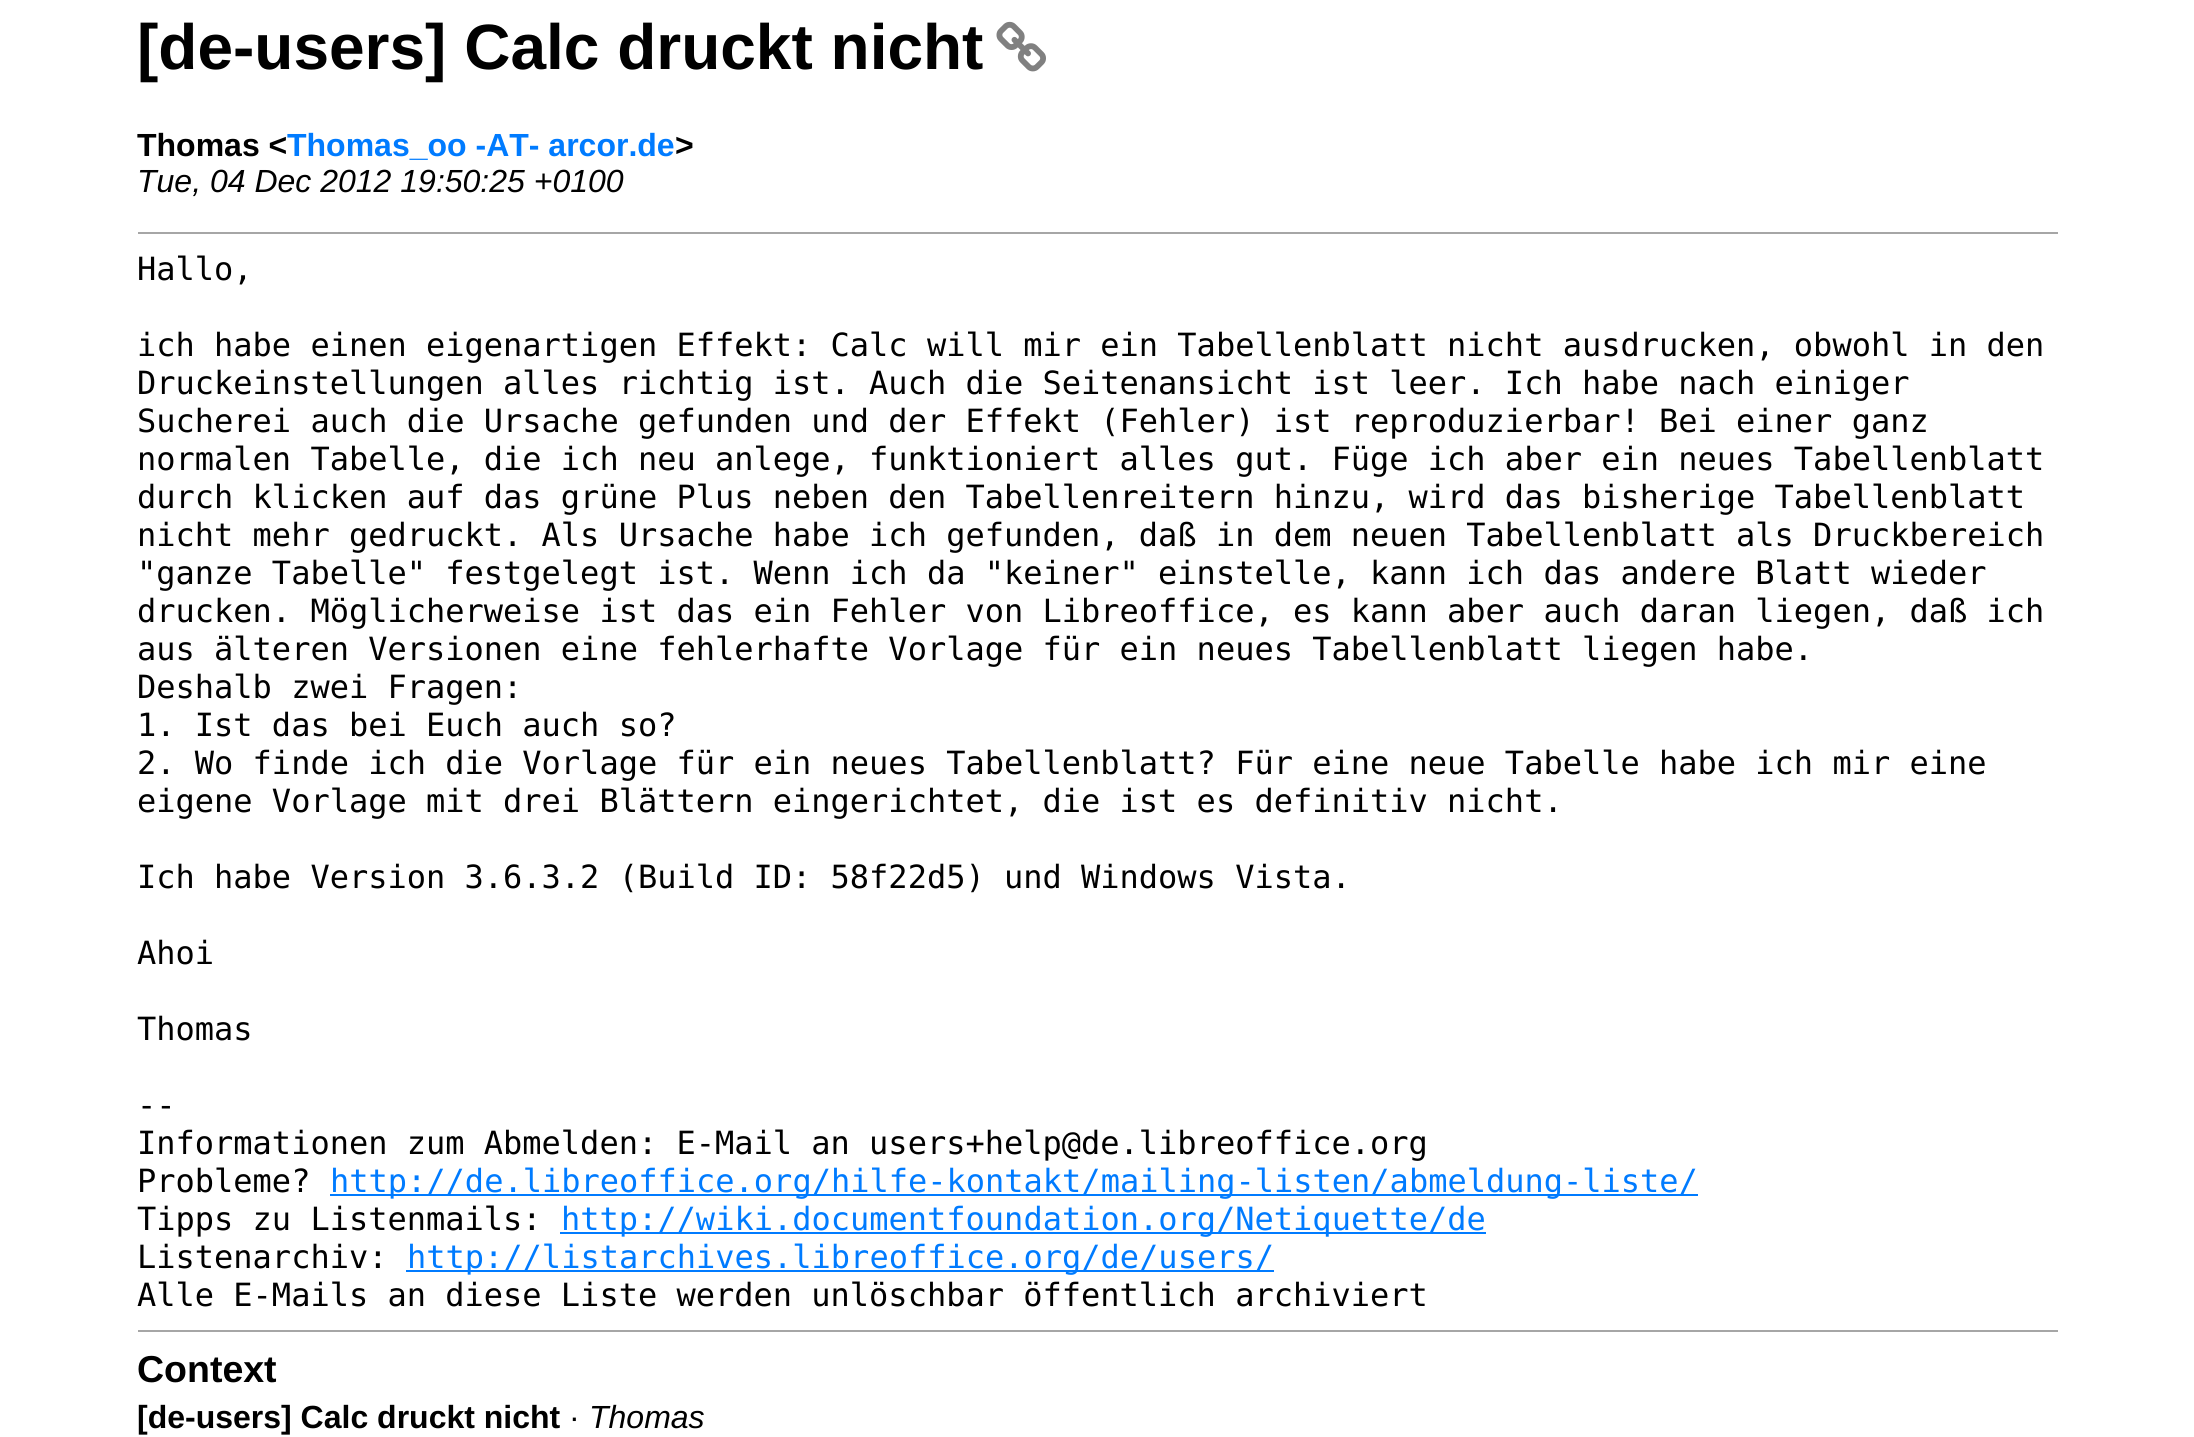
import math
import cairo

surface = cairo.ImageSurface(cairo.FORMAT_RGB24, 2194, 1437)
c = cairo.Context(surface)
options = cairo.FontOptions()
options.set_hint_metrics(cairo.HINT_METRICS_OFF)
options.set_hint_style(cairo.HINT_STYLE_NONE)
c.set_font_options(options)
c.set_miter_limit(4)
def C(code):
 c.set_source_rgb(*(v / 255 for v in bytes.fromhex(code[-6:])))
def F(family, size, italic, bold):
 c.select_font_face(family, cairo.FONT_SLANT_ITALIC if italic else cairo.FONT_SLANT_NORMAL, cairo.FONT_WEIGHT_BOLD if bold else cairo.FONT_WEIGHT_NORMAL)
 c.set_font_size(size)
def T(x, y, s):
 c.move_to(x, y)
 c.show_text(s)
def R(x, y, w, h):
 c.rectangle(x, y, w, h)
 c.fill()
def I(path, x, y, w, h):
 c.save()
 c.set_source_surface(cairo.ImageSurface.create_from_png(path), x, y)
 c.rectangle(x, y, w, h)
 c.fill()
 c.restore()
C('ffffff')
c.paint()
F('Liberation Sans',64,0,1)
C('000000')
T(137,69,'[de-users] Calc druckt nicht')
I('1.png',996,21,50,51)
F('Liberation Sans',32,0,1)
T(137,156,'Thomas <')
C('007bff')
T(287,156,'Thomas_oo -AT- arcor.de')
C('000000')
T(675,156,'>')
F('Liberation Sans',32,1,0)
T(137,192,'Tue, 04 Dec 2012 19:50:25 +0100')
C('a6a6a6')
R(138,232,1920,2)
F('DejaVu Sans Mono',32,0,0)
C('000000')
T(137,280,'Hallo,')
T(137,356,'ich habe einen eigenartigen Effekt: Calc will mir ein Tabellenblatt nicht ausdrucken, obwohl in den')
T(137,394,'Druckeinstellungen alles richtig ist. Auch die Seitenansicht ist leer. Ich habe nach einiger')
T(137,432,'Sucherei auch die Ursache gefunden und der Effekt (Fehler) ist reproduzierbar! Bei einer ganz')
T(137,470,'normalen Tabelle, die ich neu anlege, funktioniert alles gut. Füge ich aber ein neues Tabellenblatt')
T(137,508,'durch klicken auf das grüne Plus neben den Tabellenreitern hinzu, wird das bisherige Tabellenblatt')
T(137,546,'nicht mehr gedruckt. Als Ursache habe ich gefunden, daß in dem neuen Tabellenblatt als Druckbereich')
T(137,584,'"ganze Tabelle" festgelegt ist. Wenn ich da "keiner" einstelle, kann ich das andere Blatt wieder')
T(137,622,'drucken. Möglicherweise ist das ein Fehler von Libreoffice, es kann aber auch daran liegen, daß ich')
T(137,660,'aus älteren Versionen eine fehlerhafte Vorlage für ein neues Tabellenblatt liegen habe.')
T(137,698,'Deshalb zwei Fragen:')
T(137,736,'1. Ist das bei Euch auch so?')
T(137,774,'2. Wo finde ich die Vorlage für ein neues Tabellenblatt? Für eine neue Tabelle habe ich mir eine')
T(137,812,'eigene Vorlage mit drei Blättern eingerichtet, die ist es definitiv nicht.')
T(137,888,'Ich habe Version 3.6.3.2 (Build ID: 58f22d5) und Windows Vista.')
T(137,964,'Ahoi')
T(137,1040,'Thomas')
T(137,1116,'--')
T(137,1154,'Informationen zum Abmelden: E-Mail an users+help@de.libreoffice.org')
T(137,1192,'Probleme?')
C('007bff')
R(330,1194,1368,2)
T(330,1192,'http://de.libreoffice.org/hilfe-kontakt/mailing-listen/abmeldung-liste/')
C('000000')
T(137,1230,'Tipps zu Listenmails:')
C('007bff')
R(560,1232,926,2)
T(561,1230,'http://wiki.documentfoundation.org/Netiquette/de')
C('000000')
T(137,1268,'Listenarchiv:')
C('007bff')
R(406,1270,868,2)
T(407,1268,'http://listarchives.libreoffice.org/de/users/')
C('000000')
T(137,1306,'Alle E-Mails an diese Liste werden unlöschbar öffentlich archiviert')
C('a6a6a6')
R(138,1330,1920,2)
F('Liberation Sans',37.5,0,1)
C('000000')
T(137,1382,'Context')
F('Liberation Sans',32,0,1)
T(137,1428,'[de-users] Calc druckt nicht')
F('Liberation Sans',32,0,0)
T(569,1428,'·')
F('Liberation Sans',32,1,0)
T(589,1428,'Thomas')
surface.write_to_png('o.png')
